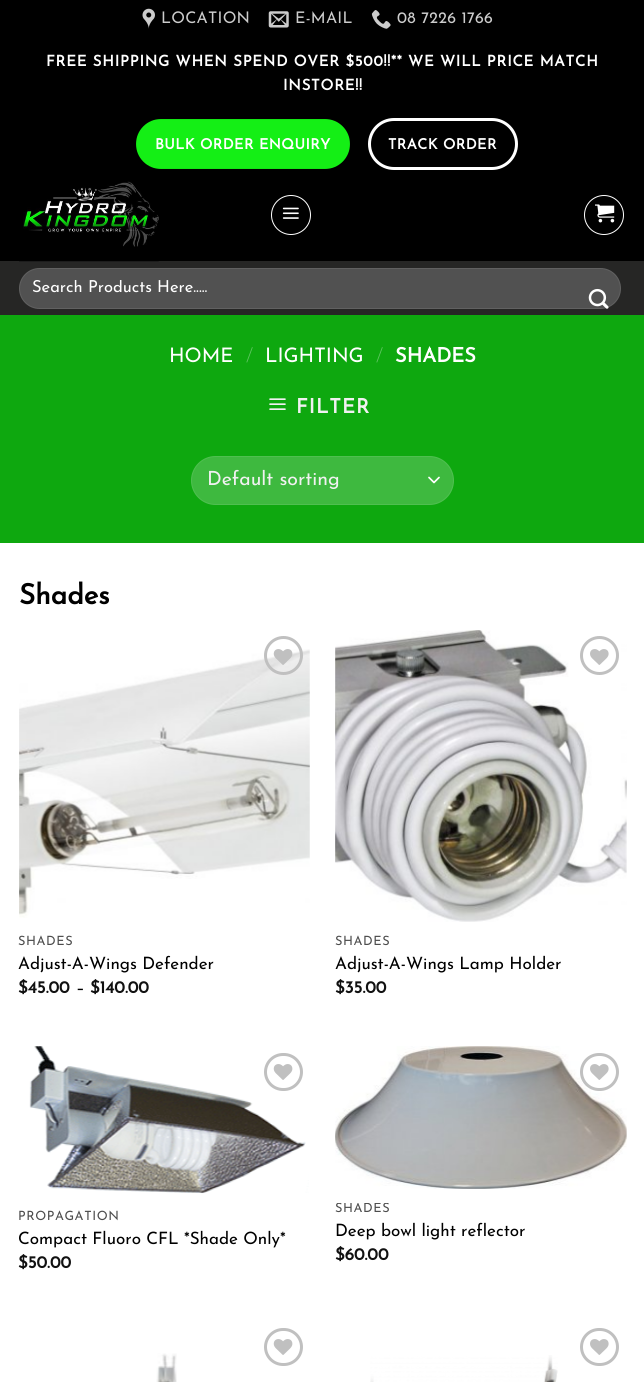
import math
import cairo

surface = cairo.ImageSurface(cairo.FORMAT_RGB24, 644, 1382)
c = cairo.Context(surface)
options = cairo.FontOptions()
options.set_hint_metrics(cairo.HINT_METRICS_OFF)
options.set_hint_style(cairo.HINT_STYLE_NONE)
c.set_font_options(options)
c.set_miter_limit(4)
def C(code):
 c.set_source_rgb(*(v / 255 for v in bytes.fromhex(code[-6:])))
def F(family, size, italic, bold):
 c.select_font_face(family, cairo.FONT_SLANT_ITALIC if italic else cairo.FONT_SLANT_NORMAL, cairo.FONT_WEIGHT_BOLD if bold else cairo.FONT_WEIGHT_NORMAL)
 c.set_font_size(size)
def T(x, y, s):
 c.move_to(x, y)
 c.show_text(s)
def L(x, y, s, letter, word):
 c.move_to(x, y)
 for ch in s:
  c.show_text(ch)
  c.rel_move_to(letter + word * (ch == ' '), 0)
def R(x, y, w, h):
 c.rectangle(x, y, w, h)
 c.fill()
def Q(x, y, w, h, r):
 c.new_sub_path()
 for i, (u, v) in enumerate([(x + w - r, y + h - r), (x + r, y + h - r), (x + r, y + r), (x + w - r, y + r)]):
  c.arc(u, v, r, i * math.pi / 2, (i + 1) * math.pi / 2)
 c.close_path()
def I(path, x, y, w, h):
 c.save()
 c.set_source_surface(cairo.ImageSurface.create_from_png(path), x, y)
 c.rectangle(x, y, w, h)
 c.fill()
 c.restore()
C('ffffff')
c.paint()
C('000000')
R(0,0,644,261)
I('1.png',142,8,13,21)
F('Josefin Sans',16,0,0)
C('cccccc')
L(161,23,'LOCATION',.25,0)
I('2.png',268,11,21,17)
L(295,23,'E-MAIL',.25,0)
I('3.png',371,10,20,19)
L(397,23,'08 7226 1766',.25,0)
F('Josefin Sans',15,0,1)
C('ffffff')
L(46,66,'FREE SHIPPING WHEN SPEND OVER $500!!** WE WILL PRICE MATCH',.75,0)
L(283,90,'INSTORE!!',.75,0)
C('14ef15')
Q(136,119,214,50,25)
c.fill()
c.rectangle(136.5,119.5,213,49)
c.set_source_rgba(0,0,0,0.05)
c.set_line_width(1)
c.stroke()
F('Josefin Sans',14.5,0,1)
C('ffffff')
L(155,149,'BULK ORDER ENQUIRY',.4,0)
Q(369.5,119.5,147,49,24.5)
c.set_line_width(3)
c.stroke()
L(388,149,'TRACK ORDER',.4,0)
C('262625')
R(0,261,644,54)
I('4.png',19,181,140,81)
c.arc(291,215,19.5,0,2 * math.pi)
C('ffffff')
c.set_line_width(1)
c.stroke()
I('5.png',282,207,17,12)
c.arc(604,215,19.5,0,2 * math.pi)
c.stroke()
I('6.png',595,204,20,19)
C('515151')
Q(19,268,602,41,20.5)
c.fill()
Q(19.5,268.5,601,40,20)
c.set_source_rgba(1,1,1,0.09)
c.stroke()
c.save()
c.rectangle(33,280,545,16)
c.clip()
F('Josefin Sans',16.5,0,0)
C('ffffff')
T(32,292,'Search Products Here.....')
c.restore()
I('7.png',588,288,21,21)
C('0ea80f')
R(0,315,644,228)
F('Josefin Sans',20,0,0)
C('ffffff')
T(169,362,'HOME')
F('Josefin Sans Light',20,0,0)
C('62c663')
T(246,362,'/')
F('Josefin Sans',20,0,0)
C('ffffff')
T(265,362,'LIGHTING')
F('Josefin Sans Light',20,0,0)
C('62c663')
T(376,362,'/')
F('Josefin Sans',20,0,1)
C('ffffff')
T(395,362,'SHADES')
I('8.png',269,398,17,12)
C('f1f1f1')
L(296,413,'FILTER',1,0)
C('3eb93f')
Q(191,456,263,49,24.5)
c.fill()
c.new_path()
c.move_to(429,477.5)
c.line_to(434,482.5)
c.line_to(439,477.5)
C('ffffff')
c.set_line_width(1.7)
c.set_line_cap(cairo.LINE_CAP_ROUND)
c.set_line_join(cairo.LINE_JOIN_ROUND)
c.stroke()
Q(191.5,456.5,262,48,24)
c.set_source_rgba(1,1,1,0.09)
c.set_line_width(1)
c.set_line_cap(cairo.LINE_CAP_BUTT)
c.set_line_join(cairo.LINE_JOIN_MITER)
c.stroke()
F('Josefin Sans',19.5,0,0)
C('f1f1f1')
T(207,485,'Default sorting')
F('Josefin Sans',28,0,1)
C('000000')
T(19,604,'Shades')
I('10.png',19,649,291,269)
c.arc(283.5,655.5,18,0,2 * math.pi)
C('c0c0c0')
c.set_line_width(3)
c.stroke()
I('9.png',273,649,20,16)
F('Josefin Sans',12.75,0,0)
C('4d4d4d')
L(18,945,'SHADES',.6,0)
F('Josefin Sans',17,0,0)
C('000000')
T(18,969,'Adjust-A-Wings Defender')
F('Josefin Sans',17,0,1)
C('111111')
T(18,993,'$45.00')
F('Josefin Sans',17,0,0)
C('000000')
T(76,993,'–')
F('Josefin Sans',17,0,1)
C('111111')
T(90,993,'$140.00')
I('11.png',335,630,292,292)
c.arc(599.5,655.5,18,0,2 * math.pi)
C('c0c0c0')
c.stroke()
I('12.png',590,649,19,16)
F('Josefin Sans',12.75,0,0)
C('4d4d4d')
L(335,945,'SHADES',.6,0)
F('Josefin Sans',17,0,0)
C('000000')
T(335,969,'Adjust-A-Wings Lamp Holder')
F('Josefin Sans',17,0,1)
C('111111')
T(335,993,'$35.00')
I('13.png',29,1046,280,148)
Q(265.5,1054.5,36,35,17.5)
C('c0c0c0')
c.stroke()
I('14.png',273,1064,20,16)
F('Josefin Sans',12.75,0,0)
C('4d4d4d')
L(18,1220,'PROPAGATION',.6,0)
F('Josefin Sans',17,0,0)
C('000000')
T(18,1244,'Compact Fluoro CFL *Shade Only*')
F('Josefin Sans',17,0,1)
C('111111')
T(18,1268,'$50.00')
I('15.png',335,1046,292,143)
Q(581.5,1054.5,36,35,17.5)
C('c0c0c0')
c.stroke()
I('12.png',590,1064,19,16)
c.save()
c.rectangle(335,1203,291,15)
c.clip()
F('Josefin Sans',12.75,0,0)
C('4d4d4d')
L(335,1212,'SHADES',.6,0)
c.restore()
F('Josefin Sans',17,0,0)
C('000000')
T(335,1236,'Deep bowl light reflector')
F('Josefin Sans',17,0,1)
C('111111')
T(335,1260,'$60.00')
I('16.png',156,1353,21,29)
Q(265.5,1329.5,36,35,17.5)
C('c0c0c0')
c.stroke()
I('14.png',273,1339,20,16)
I('17.png',370,1355,188,27)
Q(581.5,1329.5,36,35,17.5)
c.stroke()
I('12.png',590,1339,19,16)
surface.write_to_png('o.png')
